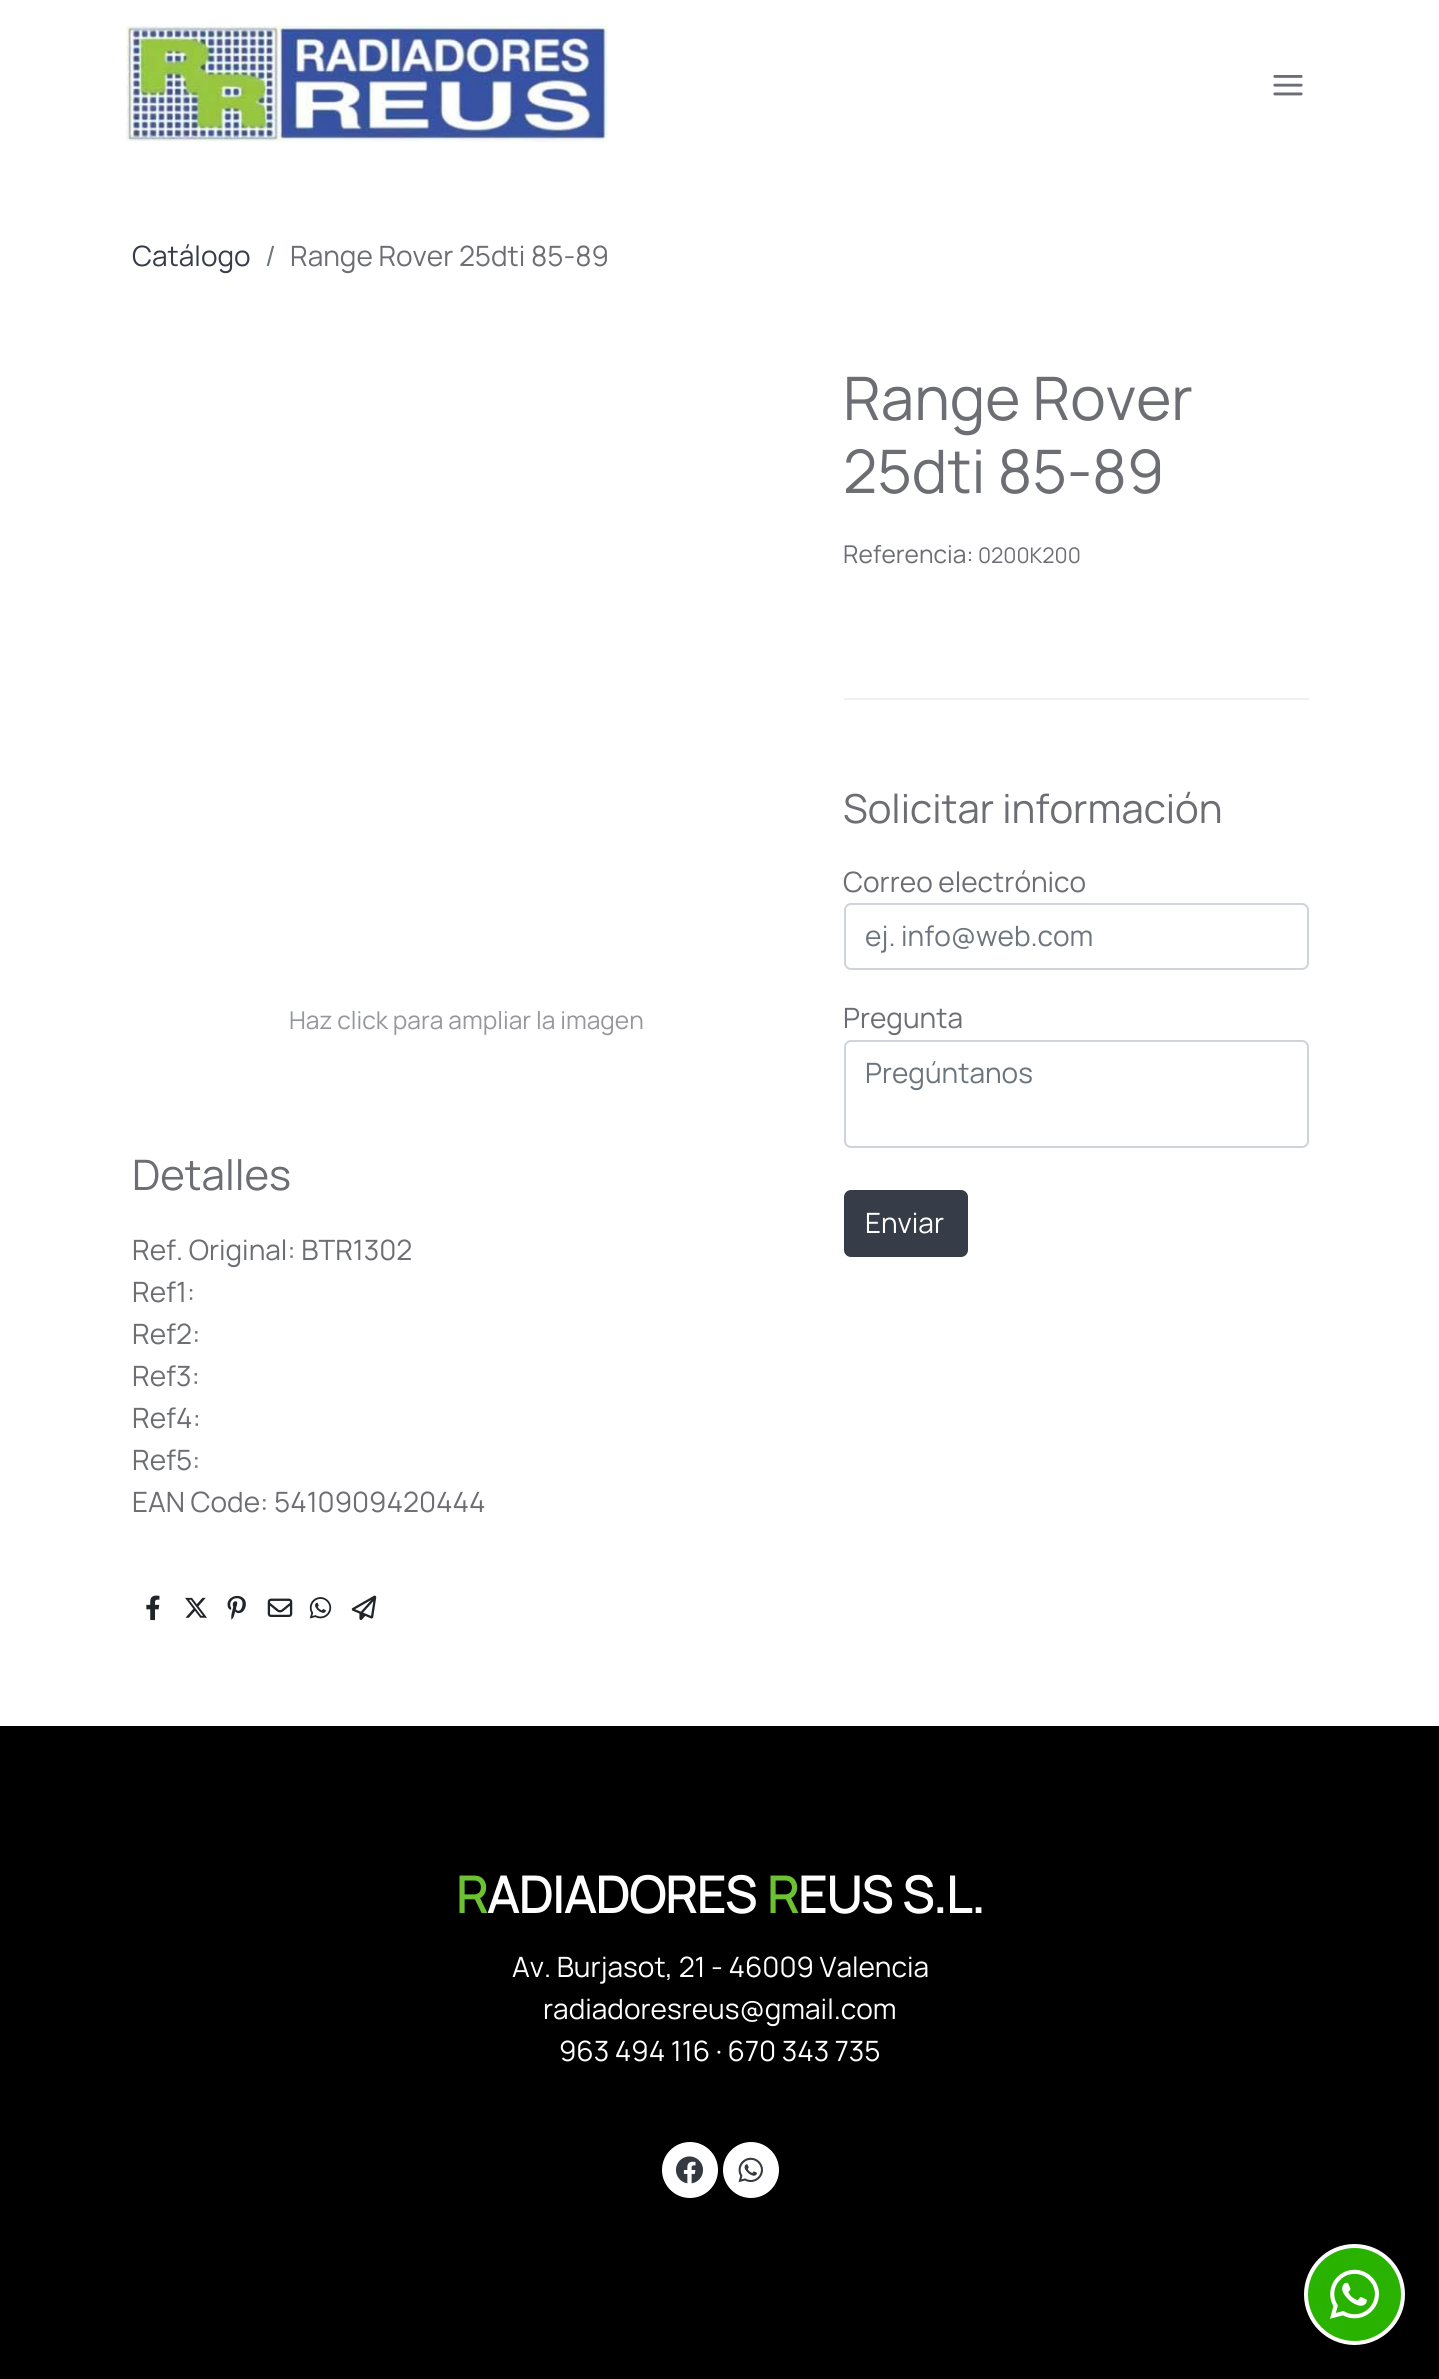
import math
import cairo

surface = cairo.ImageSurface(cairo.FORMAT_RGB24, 1439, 2379)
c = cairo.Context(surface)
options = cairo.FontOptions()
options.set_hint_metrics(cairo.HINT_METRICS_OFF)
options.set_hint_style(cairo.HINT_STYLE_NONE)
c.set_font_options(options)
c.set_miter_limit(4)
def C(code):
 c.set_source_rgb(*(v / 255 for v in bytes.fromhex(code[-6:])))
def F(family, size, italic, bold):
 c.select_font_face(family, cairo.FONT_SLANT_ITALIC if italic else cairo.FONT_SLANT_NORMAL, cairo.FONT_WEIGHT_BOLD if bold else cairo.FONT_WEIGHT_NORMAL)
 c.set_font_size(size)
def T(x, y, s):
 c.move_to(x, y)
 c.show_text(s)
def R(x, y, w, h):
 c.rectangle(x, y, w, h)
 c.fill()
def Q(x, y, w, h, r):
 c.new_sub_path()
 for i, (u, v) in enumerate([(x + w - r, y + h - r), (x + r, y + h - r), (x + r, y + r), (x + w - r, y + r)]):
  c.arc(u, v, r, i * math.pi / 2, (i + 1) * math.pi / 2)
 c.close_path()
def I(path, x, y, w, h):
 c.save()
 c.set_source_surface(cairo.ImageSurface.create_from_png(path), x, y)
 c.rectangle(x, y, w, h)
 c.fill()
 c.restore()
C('ffffff')
c.paint()
I('1.png',126,26,482,116)
I('2.png',1273,75,30,21)
F('Manrope ExtraLight',28,0,0)
C('363c48')
T(132,266,'Catálogo')
C('6c757d')
T(265,266,'/')
C('6c6e73')
T(290,266,'Range Rover 25dti 85-89')
F('Manrope ExtraLight',24.5,0,0)
C('95979c')
T(289,1029,'Haz click para ampliar la imagen')
F('Manrope ExtraLight',42,0,0)
C('6c6e73')
T(132,1190,'Detalles')
F('Manrope ExtraLight',28,0,0)
T(132,1260,'Ref. Original: BTR1302')
T(132,1302,'Ref1:')
T(132,1344,'Ref2:')
T(132,1386,'Ref3:')
T(132,1428,'Ref4:')
T(132,1470,'Ref5:')
T(132,1512,'EAN Code: 5410909420444')
I('3.png',146,1595,14,26)
I('4.png',185,1597,22,21)
I('5.png',227,1595,19,25)
I('6.png',267,1598,26,19)
I('7.png',309,1597,23,22)
I('8.png',351,1595,26,25)
F('Manrope ExtraLight',60,0,0)
T(843,420,'Range Rover')
T(843,493,'25dti 85-89')
F('Manrope ExtraLight',24.5,0,0)
T(843,563,'Referencia:')
F('Manrope ExtraLight',21.5,0,0)
T(978,563,'0200K200')
C('eff0f2')
R(844,698,465,2)
F('Manrope ExtraLight',40,0,0)
C('6c6e73')
T(843,823,'Solicitar información')
F('Manrope ExtraLight',28,0,0)
T(843,892,'Correo electrónico')
Q(845,904,463,65,6)
C('ced4da')
c.stroke()
C('6c757d')
T(865,946,'ej. info@web.com')
C('6c6e73')
T(843,1028,'Pregunta')
Q(845,1041,463,106,6)
C('ced4da')
c.stroke()
C('6c757d')
T(865,1083,'Pregúntanos')
C('363c48')
Q(845,1191,122,65,6)
c.fill_preserve()
c.stroke()
C('ffffff')
T(865,1233,'Enviar')
C('000000')
R(0,1726,1439,653)
F('Manrope',50,0,1)
C('6dc234')
T(456,1913,'R')
C('ffffff')
T(487,1913,'ADIADORES')
C('6dc234')
T(767,1913,'R')
C('ffffff')
T(798,1913,'EUS S.L.')
F('Manrope ExtraLight',28,0,0)
T(512,1977,'Av. Burjasot, 21 - 46009 Valencia')
T(543,2019,'radiadoresreus@gmail.com')
T(559,2061,'963 494 116 · 670 343 735')
c.new_path()
c.arc(690,2170,28,0,2 * math.pi)
c.fill()
I('9.png',675,2156,29,28)
c.arc(751,2170,28,0,2 * math.pi)
c.fill()
I('10.png',738,2157,25,26)
C('29b200')
c.arc(1354.5,2294.5,48.5,0,2 * math.pi)
c.fill_preserve()
C('ffffff')
c.set_line_width(4)
c.stroke()
I('11.png',1330,2269,49,50)
surface.write_to_png('o.png')
